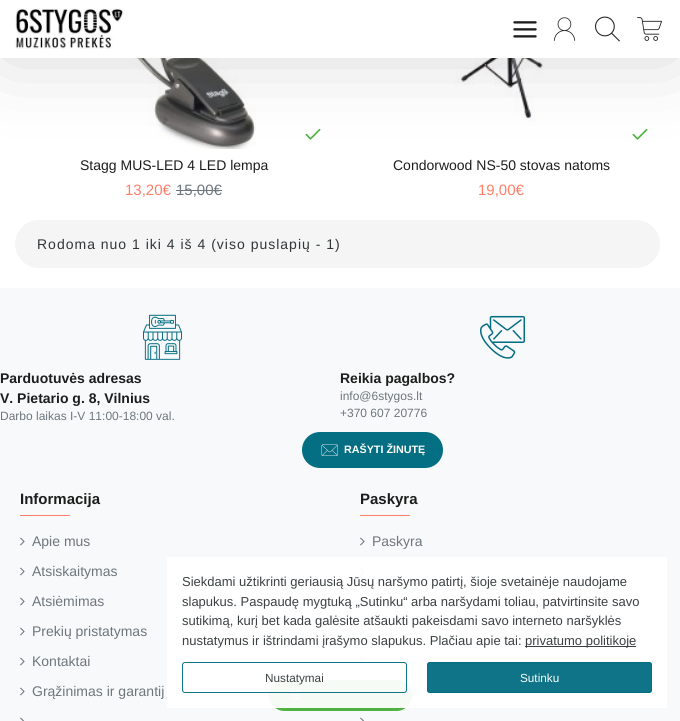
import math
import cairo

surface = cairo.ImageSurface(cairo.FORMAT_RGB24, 680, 721)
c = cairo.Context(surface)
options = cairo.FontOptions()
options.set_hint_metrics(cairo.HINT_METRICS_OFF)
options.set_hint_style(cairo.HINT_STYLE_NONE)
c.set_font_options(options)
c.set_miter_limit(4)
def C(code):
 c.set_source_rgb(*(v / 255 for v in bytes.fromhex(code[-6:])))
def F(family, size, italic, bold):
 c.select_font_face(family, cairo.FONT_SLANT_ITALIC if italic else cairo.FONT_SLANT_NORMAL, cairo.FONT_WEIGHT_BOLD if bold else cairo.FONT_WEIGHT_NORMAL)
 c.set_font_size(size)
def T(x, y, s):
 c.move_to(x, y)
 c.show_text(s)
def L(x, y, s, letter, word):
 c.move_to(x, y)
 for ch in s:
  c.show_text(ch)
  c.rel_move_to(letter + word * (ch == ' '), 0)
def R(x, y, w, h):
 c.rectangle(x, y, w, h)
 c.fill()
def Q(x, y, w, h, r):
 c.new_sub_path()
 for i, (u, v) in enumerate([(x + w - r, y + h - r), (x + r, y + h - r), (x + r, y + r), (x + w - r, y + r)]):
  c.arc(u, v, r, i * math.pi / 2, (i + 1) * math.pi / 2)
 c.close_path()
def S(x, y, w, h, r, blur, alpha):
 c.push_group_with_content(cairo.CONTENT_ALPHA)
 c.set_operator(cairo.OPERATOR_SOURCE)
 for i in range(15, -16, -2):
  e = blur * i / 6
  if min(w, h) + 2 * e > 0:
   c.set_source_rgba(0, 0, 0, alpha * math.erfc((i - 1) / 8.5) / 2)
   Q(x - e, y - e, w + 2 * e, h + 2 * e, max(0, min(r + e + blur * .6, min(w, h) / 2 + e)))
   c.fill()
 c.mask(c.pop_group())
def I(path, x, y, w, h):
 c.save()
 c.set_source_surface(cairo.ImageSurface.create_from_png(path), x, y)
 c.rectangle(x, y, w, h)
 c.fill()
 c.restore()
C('ffffff')
c.paint()
I('6.png',98,58,158,91)
I('7.png',305,128,16,12)
I('8.png',455,58,88,64)
I('7.png',632,128,16,12)
C('000000')
S(10,10,660,38,0,42.5,.2)
C('ffffff')
R(0,0,680,58)
I('1.png',15,8,109,41)
I('2.png',513,21,24,17)
I('3.png',554,17,22,24)
I('4.png',595,16,25,26)
I('5.png',637,17,25,24)
F('Liberation Sans',14,0,0)
C('1d1d1d')
T(80,170,'Stagg MUS-LED 4 LED lempa')
F('Liberation Sans',15,0,0)
C('ff7e67')
T(125,195,'13,20€')
C('6d767d')
T(176,195,'15,00€')
R(176,190,46,1)
F('Liberation Sans',14,0,0)
C('1d1d1d')
T(393,170,'Condorwood NS-50 stovas natoms')
F('Liberation Sans',15,0,0)
C('ff7e67')
T(478,195,'19,00€')
C('f5f5f5')
Q(15,220,645,48,24)
c.fill()
F('Liberation Sans',14,0,0)
C('313639')
L(37,249,'Rodoma nuo 1 iki 4 iš 4 (viso puslapių - 1)',1,0)
C('f8f9fa')
R(0,288,680,433)
I('9.png',143,314,39,46)
F('Liberation Sans',14,0,1)
C('1d1d1d')
T(0,383,'Parduotuvės adresas')
T(0,403,'V. Pietario g. 8, Vilnius')
F('Liberation Sans',12,0,0)
C('6d767d')
T(0,420,'Darbo laikas I-V 11:00-18:00 val.')
I('10.png',480,315,45,44)
F('Liberation Sans',14,0,1)
C('1d1d1d')
T(340,383,'Reikia pagalbos?')
F('Liberation Sans',12,0,0)
C('6d767d')
T(340,400,'info@6stygos.lt')
T(340,417,'+370 607 20776')
C('046e82')
Q(302,432,141,36,18)
c.fill()
I('11.png',321,444,17,12)
F('Liberation Sans',10.75,0,1)
C('ffffff')
T(344,453,'RAŠYTI ŽINUTĘ')
F('Liberation Sans',15,0,1)
C('1d1d1d')
T(20,504,'Informacija')
C('ff7e67')
R(20,515,50,1)
I('12.png',20,537,5,9)
F('Liberation Sans',14,0,0)
C('6d767d')
T(32,546,'Apie mus')
I('12.png',20,567,5,9)
T(32,576,'Atsiskaitymas')
I('12.png',20,597,5,9)
T(32,606,'Atsiėmimas')
I('12.png',20,627,5,9)
T(32,636,'Prekių pristatymas')
I('12.png',20,657,5,9)
T(32,666,'Kontaktai')
I('12.png',20,687,5,9)
T(32,696,'Grąžinimas ir garantij')
I('13.png',20,717,5,4)
F('Liberation Sans',15,0,1)
C('1d1d1d')
T(360,504,'Paskyra')
C('ff7e67')
R(360,515,50,1)
I('12.png',360,537,5,9)
F('Liberation Sans',14,0,0)
C('6d767d')
T(372,546,'Paskyra')
I('12.png',360,567,5,9)
I('12.png',360,597,5,9)
I('12.png',360,627,5,9)
I('12.png',360,657,5,9)
I('13.png',360,717,5,4)
C('4eb142')
Q(269,680,143,31,15.5)
c.fill()
I('14.png',290,690,11,10)
c.set_source_rgba(1,1,1,0.95)
R(167,557,500,151)
F('Liberation Sans',13,0,0)
C('3b4043')
T(182,586,'Siekdami užtikrinti geriausią Jūsų naršymo patirtį, šioje svetainėje naudojame')
T(182,606,'slapukus. Paspaudę mygtuką „Sutinku“ arba naršydami toliau, patvirtinsite savo')
T(182,625,'sutikimą, kurį bet kada galėsite atšaukti pakeisdami savo interneto naršyklės')
T(182,645,'nustatymus ir ištrindami įrašymo slapukus. Plačiau apie tai:')
R(525,646,111,1)
T(525,645,'privatumo politikoje')
Q(182.5,662.5,224,30,2.5)
c.set_source_rgba(0.016,0.431,0.51,0.95)
c.set_line_width(1)
c.stroke()
F('Liberation Sans',11.75,0,0)
C('3b4043')
T(265,682,'Nustatymai')
c.set_source_rgba(0.016,0.431,0.51,0.95)
Q(427,662,225,31,3)
c.fill()
Q(427.5,662.5,224,30,2.5)
c.stroke()
C('ffffff')
T(520,682,'Sutinku')
surface.write_to_png('o.png')
